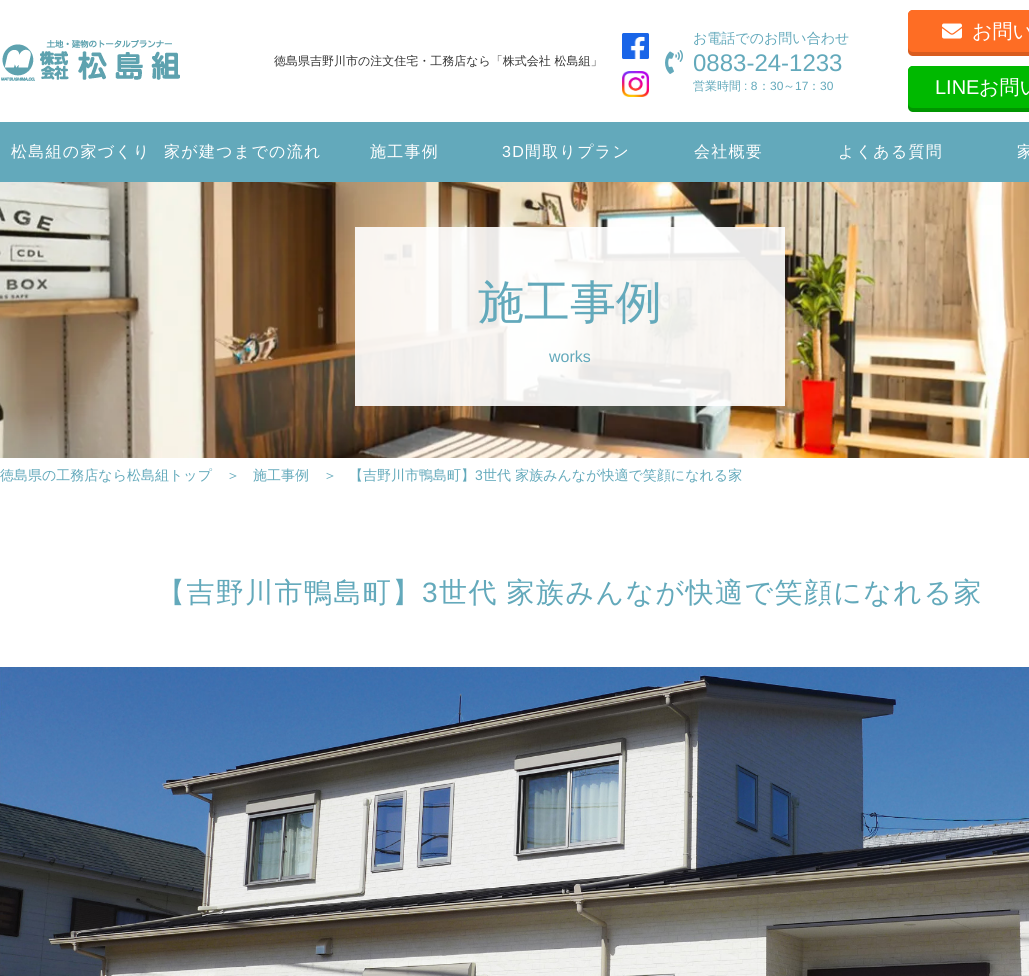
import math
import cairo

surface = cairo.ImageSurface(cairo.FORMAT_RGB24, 1029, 976)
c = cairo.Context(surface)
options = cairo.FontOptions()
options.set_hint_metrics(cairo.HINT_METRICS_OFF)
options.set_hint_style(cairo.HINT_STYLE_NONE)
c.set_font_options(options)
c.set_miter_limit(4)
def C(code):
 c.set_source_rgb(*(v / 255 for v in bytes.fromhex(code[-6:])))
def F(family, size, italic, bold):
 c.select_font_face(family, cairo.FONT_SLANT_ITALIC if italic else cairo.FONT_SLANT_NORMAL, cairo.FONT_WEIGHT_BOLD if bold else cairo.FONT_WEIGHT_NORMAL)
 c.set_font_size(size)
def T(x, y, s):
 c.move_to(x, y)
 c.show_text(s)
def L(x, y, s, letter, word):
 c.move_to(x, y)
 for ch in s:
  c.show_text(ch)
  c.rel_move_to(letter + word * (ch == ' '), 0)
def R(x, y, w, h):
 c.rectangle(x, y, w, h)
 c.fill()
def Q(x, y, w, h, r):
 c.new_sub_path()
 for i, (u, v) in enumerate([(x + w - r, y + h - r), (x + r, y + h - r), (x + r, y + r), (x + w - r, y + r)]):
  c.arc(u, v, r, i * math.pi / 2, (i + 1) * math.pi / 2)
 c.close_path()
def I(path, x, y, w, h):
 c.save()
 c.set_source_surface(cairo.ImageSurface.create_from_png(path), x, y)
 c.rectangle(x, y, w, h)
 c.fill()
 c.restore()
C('ffffff')
c.paint()
I('1.png',1,40,179,41)
F('WenQuanYi Zen Hei Medium',12,0,0)
C('323232')
T(274,65,'徳島県吉野川市の注文住宅・工務店なら「株式会社 松島組」')
I('2.png',622,33,27,26)
I('3.png',622,71,27,26)
F('WenQuanYi Zen Hei Medium',14,0,0)
C('63a9bb')
T(693,43,'お電話でのお問い合わせ')
I('4.png',665,50,18,24)
F('Liberation Sans',24,0,0)
T(693,71,'0883-24-1233')
F('WenQuanYi Zen Hei Medium',12,0,0)
T(693,90,'営業時間')
F('Liberation Sans',12,0,0)
T(744,90,': 8')
F('WenQuanYi Zen Hei Medium',12,0,0)
T(758,90,'：')
F('Liberation Sans',12,0,0)
T(770,90,'30')
F('WenQuanYi Zen Hei Medium',12,0,0)
T(783,90,'～')
F('Liberation Sans',12,0,0)
T(795,90,'17')
F('WenQuanYi Zen Hei Medium',12,0,0)
T(808,90,'：')
F('Liberation Sans',12,0,0)
T(820,90,'30')
C('d95c1e')
Q(908,10,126,46,5)
c.fill()
C('fe6d24')
Q(908,10,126,42,5)
c.fill()
I('5.png',942,23,20,16)
F('WenQuanYi Zen Hei Medium',20,0,0)
C('ffffff')
T(972,38,'お問い')
C('009500')
Q(908,66,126,46,5)
c.fill()
C('00b900')
Q(908,66,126,42,5)
c.fill()
F('Liberation Sans',20,0,0)
C('ffffff')
T(935,94,'LINE')
F('WenQuanYi Zen Hei Medium',20,0,0)
T(979,94,'お問い')
C('63a9bb')
R(0,122,1029,60)
F('WenQuanYi Zen Hei Medium',16,0,0)
C('ffffff')
L(11,157,'松島組の家づくり',1.25,0)
L(164,157,'家が建つまでの流れ',1.25,0)
L(370,157,'施工事例',1.25,0)
F('Liberation Sans',16,0,0)
L(502,157,'3D',1.25,0)
F('WenQuanYi Zen Hei Medium',16,0,0)
L(525,157,'間取りプラン',1.25,0)
L(694,157,'会社概要',1.25,0)
L(838,157,'よくある質問',1.25,0)
L(1017,157,'家',1.25,0)
I('6.png',0,182,1029,276)
c.set_source_rgba(1,1,1,0.9)
R(355,227,430,179)
F('WenQuanYi Zen Hei Medium',46,0,0)
C('63a9bb')
T(478,318,'施工事例')
F('Liberation Sans',16,0,0)
T(549,362,'works')
F('WenQuanYi Zen Hei Medium',14,0,0)
T(0,480,'徳島県の工務店なら松島組トップ')
T(226,480,'＞')
T(253,480,'施工事例')
T(323,480,'＞')
T(349,480,'【吉野川市鴨島町】')
F('Liberation Sans',14,0,0)
T(475,480,'3')
F('WenQuanYi Zen Hei Medium',14,0,0)
T(483,480,'世代 家族みんなが快適で笑顔になれる家')
F('WenQuanYi Zen Hei Medium',28,0,0)
L(157,602,'【吉野川市鴨島町】',1.4,0)
F('Liberation Sans',28,0,0)
L(422,602,'3',1.4,0)
F('WenQuanYi Zen Hei Medium',28,0,0)
L(439,602,'世代 家族みんなが快適で笑顔になれる家',1.4,-1)
I('7.png',0,667,1029,309)
surface.write_to_png('o.png')
